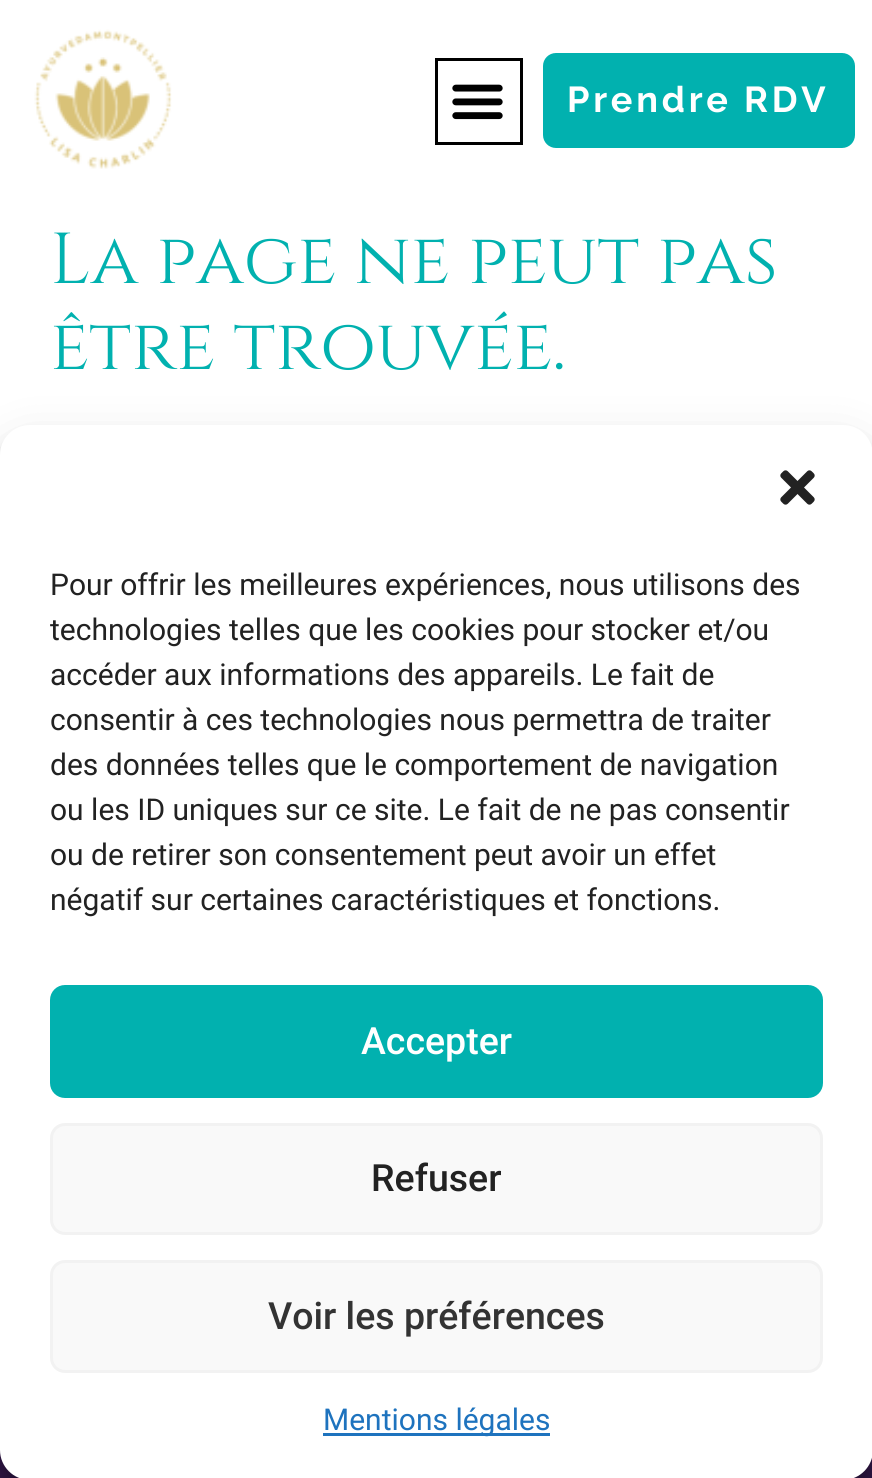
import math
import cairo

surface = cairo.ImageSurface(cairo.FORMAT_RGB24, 872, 1478)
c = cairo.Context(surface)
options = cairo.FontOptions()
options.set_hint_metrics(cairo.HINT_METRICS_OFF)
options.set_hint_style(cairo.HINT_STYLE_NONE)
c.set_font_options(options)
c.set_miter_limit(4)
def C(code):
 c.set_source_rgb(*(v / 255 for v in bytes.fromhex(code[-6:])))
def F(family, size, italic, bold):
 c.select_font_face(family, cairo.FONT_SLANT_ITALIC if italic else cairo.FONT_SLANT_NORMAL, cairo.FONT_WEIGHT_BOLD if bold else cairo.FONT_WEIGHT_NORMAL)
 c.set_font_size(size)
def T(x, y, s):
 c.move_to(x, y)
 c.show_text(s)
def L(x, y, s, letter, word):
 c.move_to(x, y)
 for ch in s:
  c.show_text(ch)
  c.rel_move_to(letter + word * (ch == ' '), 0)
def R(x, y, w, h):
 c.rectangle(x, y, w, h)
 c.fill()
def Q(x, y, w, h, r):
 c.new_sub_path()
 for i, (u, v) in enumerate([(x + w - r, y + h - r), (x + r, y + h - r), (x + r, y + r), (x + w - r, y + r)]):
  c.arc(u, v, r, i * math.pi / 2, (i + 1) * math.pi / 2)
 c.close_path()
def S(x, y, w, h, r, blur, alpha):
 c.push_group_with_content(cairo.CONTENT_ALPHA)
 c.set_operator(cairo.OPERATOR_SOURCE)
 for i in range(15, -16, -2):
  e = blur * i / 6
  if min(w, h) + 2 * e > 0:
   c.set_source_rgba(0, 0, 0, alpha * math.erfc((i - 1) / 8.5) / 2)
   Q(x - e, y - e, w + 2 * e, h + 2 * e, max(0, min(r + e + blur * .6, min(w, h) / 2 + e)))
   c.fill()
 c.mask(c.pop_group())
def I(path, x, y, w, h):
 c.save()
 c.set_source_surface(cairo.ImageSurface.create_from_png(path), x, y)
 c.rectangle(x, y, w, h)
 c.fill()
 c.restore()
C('ffffff')
c.paint()
I('1.png',34,29,138,140)
c.rectangle(436.5,59.5,85,84)
C('000000')
c.set_line_width(3)
c.stroke()
I('2.png',452,84,51,36)
C('01b1af')
Q(543,53,312,95,13)
c.fill()
F('Raleway',36,0,1)
C('ffffff')
L(567,112,'Prendre RDV',3.75,0)
F('Cinzel',72,0,0)
C('01b1af')
T(50,283,'La page ne peut pas')
T(50,369,'être trouvée.')
C('321749')
R(0,1450,872,28)
C('000000')
S(0,440,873,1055,30,7.5,.23)
S(0,450,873,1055,30,25,.19)
C('ffffff')
Q(0,425,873,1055,30)
c.fill()
I('3.png',780,470,35,35)
F('Roboto',30,0,0)
C('222222')
T(50,595,'Pour offrir les meilleures expériences, nous utilisons des')
T(50,640,'technologies telles que les cookies pour stocker et/ou')
T(50,685,'accéder aux informations des appareils. Le fait de')
T(50,730,'consentir à ces technologies nous permettra de traiter')
T(50,775,'des données telles que le comportement de navigation')
T(50,820,'ou les ID uniques sur ce site. Le fait de ne pas consentir')
T(50,865,'ou de retirer son consentement peut avoir un effet')
T(50,910,'négatif sur certaines caractéristiques et fonctions.')
C('01b1af')
Q(51.5,986.5,770,110,13.5)
c.fill_preserve()
c.stroke()
F('Roboto Medium',37.5,0,0)
C('ffffff')
T(361,1054,'Accepter')
C('f9f9f9')
Q(51.5,1124.5,770,109,13.5)
c.fill_preserve()
C('f2f2f2')
c.stroke()
C('222222')
T(371,1191,'Refuser')
C('f9f9f9')
Q(51.5,1261.5,770,110,13.5)
c.fill_preserve()
C('f2f2f2')
c.stroke()
C('333333')
T(268,1329,'Voir les préférences')
C('1e73be')
R(323,1433,227,3)
F('Roboto',30,0,0)
T(323,1430,'Mentions légales')
surface.write_to_png('o.png')
